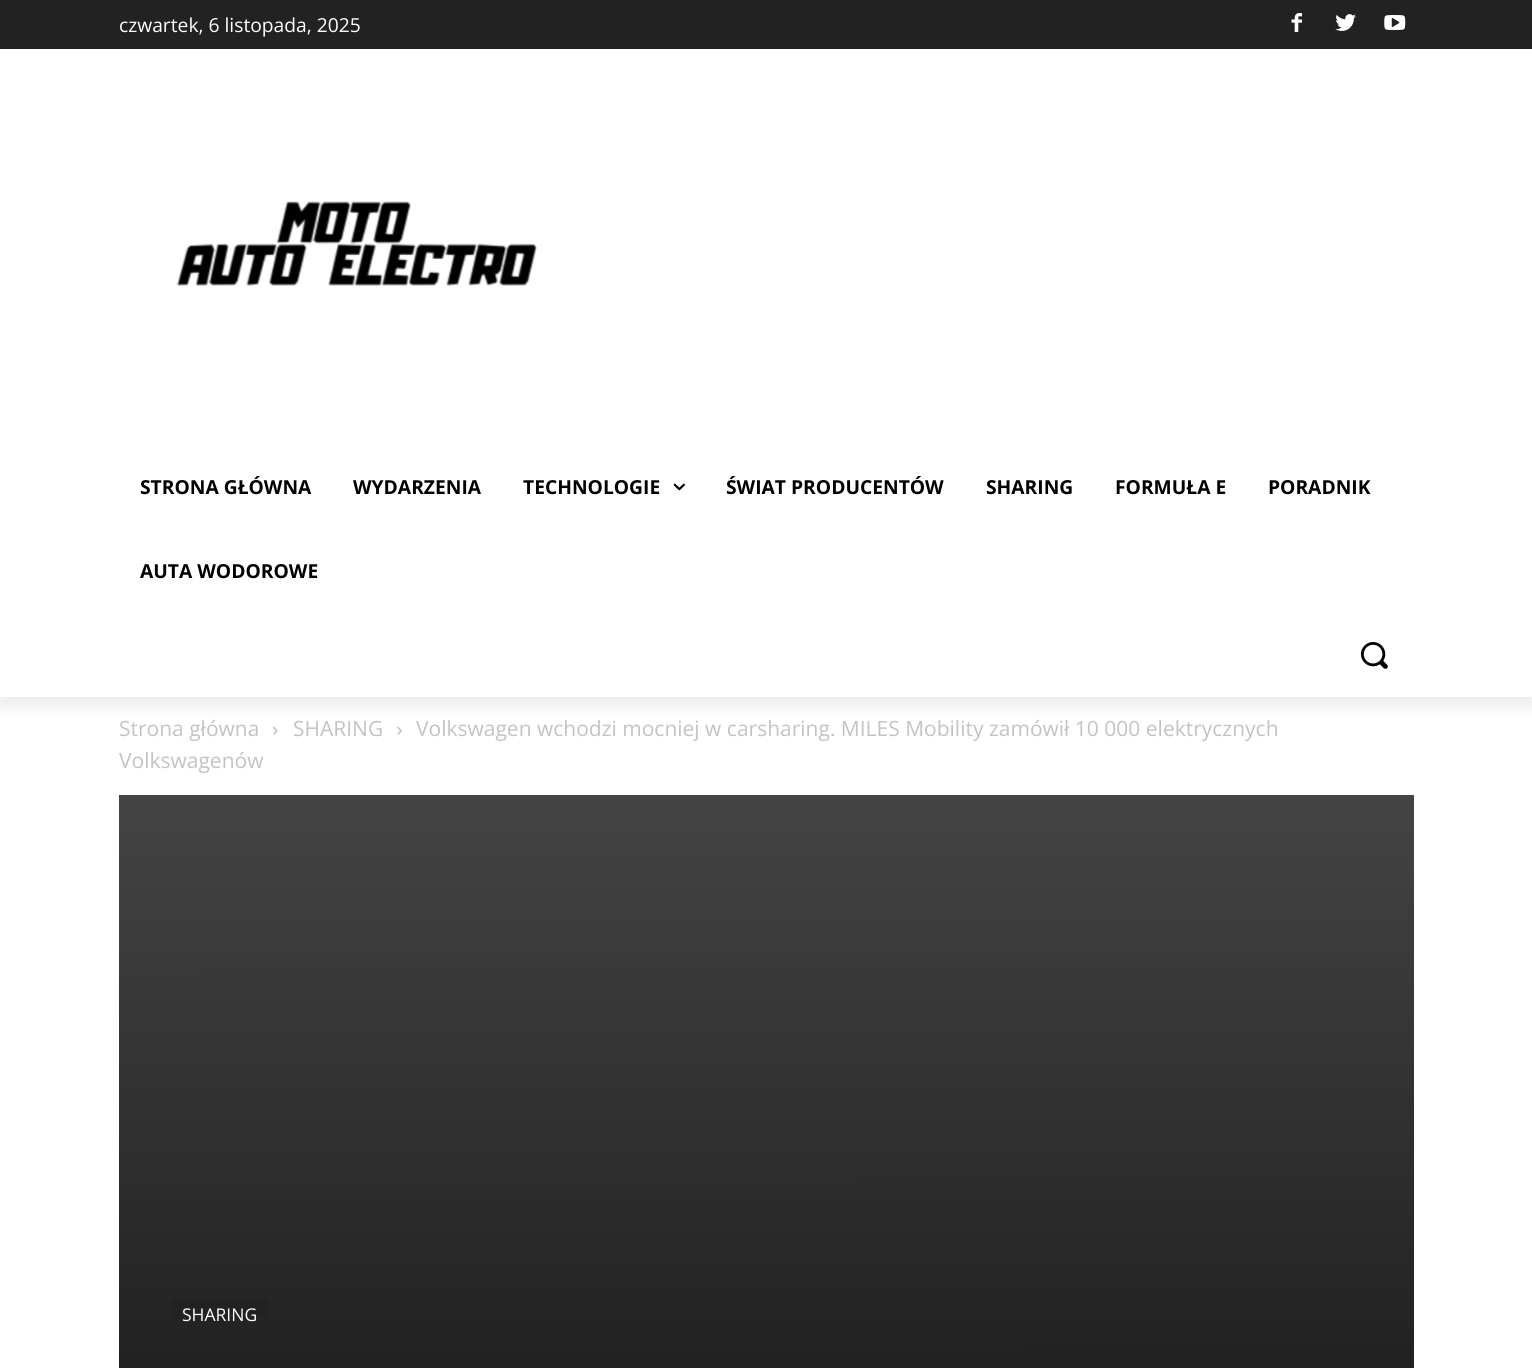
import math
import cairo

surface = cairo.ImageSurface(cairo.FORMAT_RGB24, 1532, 1368)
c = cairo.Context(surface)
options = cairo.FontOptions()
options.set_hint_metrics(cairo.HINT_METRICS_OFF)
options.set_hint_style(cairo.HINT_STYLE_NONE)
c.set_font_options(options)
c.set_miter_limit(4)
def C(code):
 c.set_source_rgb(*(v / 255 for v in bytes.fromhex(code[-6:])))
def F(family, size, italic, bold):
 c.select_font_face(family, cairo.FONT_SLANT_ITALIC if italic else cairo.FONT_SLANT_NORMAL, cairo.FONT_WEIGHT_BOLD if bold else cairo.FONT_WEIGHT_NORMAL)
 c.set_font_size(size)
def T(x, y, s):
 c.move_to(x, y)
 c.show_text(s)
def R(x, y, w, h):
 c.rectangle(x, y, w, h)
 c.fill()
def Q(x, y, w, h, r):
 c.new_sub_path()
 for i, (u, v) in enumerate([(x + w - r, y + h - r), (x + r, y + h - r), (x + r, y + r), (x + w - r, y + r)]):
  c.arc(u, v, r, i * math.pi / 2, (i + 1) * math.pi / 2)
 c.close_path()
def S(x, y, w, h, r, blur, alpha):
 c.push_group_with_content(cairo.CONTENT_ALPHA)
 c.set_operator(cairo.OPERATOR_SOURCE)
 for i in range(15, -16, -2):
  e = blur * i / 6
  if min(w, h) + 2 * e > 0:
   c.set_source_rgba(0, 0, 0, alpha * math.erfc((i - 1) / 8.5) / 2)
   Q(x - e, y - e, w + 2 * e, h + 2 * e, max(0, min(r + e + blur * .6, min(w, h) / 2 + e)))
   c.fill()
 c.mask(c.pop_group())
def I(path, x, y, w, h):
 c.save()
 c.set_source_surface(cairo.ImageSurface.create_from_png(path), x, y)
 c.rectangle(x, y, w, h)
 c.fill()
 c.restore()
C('ffffff')
c.paint()
C('222222')
R(0,0,1532,49)
I('1.png',1291,13,11,19)
I('2.png',1335,14,21,17)
I('3.png',1384,15,22,15)
I('4.png',176,201,362,85)
I('7.png',273,726,5,9)
I('8.png',397,726,5,9)
c.save()
c.set_fill_rule(cairo.FILL_RULE_EVEN_ODD)
c.new_path()
c.move_to(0,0)
c.line_to(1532,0)
c.line_to(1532,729)
c.line_to(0,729)
c.close_path()
c.move_to(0,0)
c.line_to(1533,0)
c.line_to(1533,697)
c.line_to(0,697)
c.close_path()
c.clip()
C('000000')
S(0,11,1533,696,0,7,.08)
c.restore()
F('Open Sans',19.25,0,0)
C('ffffff')
T(119,32,'czwartek, 6 listopada, 2025')
F('Open Sans',19.25,0,1)
C('000000')
T(140,494,'STRONA GŁÓWNA')
T(353,494,'WYDARZENIA')
T(523,494,'TECHNOLOGIE')
I('5.png',673,483,12,8)
T(726,494,'ŚWIAT PRODUCENTÓW')
T(986,494,'SHARING')
T(1115,494,'FORMUŁA E')
T(1268,494,'PORADNIK')
T(140,578,'AUTA WODOROWE')
I('6.png',1360,642,28,27)
F('Open Sans',21,0,0)
C('c3c3c3')
T(119,736,'Strona główna')
T(293,736,'SHARING')
T(416,736,'Volkswagen wchodzi mocniej w carsharing. MILES Mobility zamówił 10 000 elektrycznych')
T(119,768,'Volkswagenów')
gradient = cairo.LinearGradient(766,794,767,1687)
gradient.add_color_stop_rgba(0,0.267,0.267,0.267,1)
gradient.add_color_stop_rgba(1,0.055,0.055,0.055,1)
c.set_source(gradient)
R(119,795,1295,573)
C('222222')
R(172,1300,96,16)
F('Open Sans',17.5,0,0)
C('ffffff')
T(182,1321,'SHARING')
surface.write_to_png('o.png')
